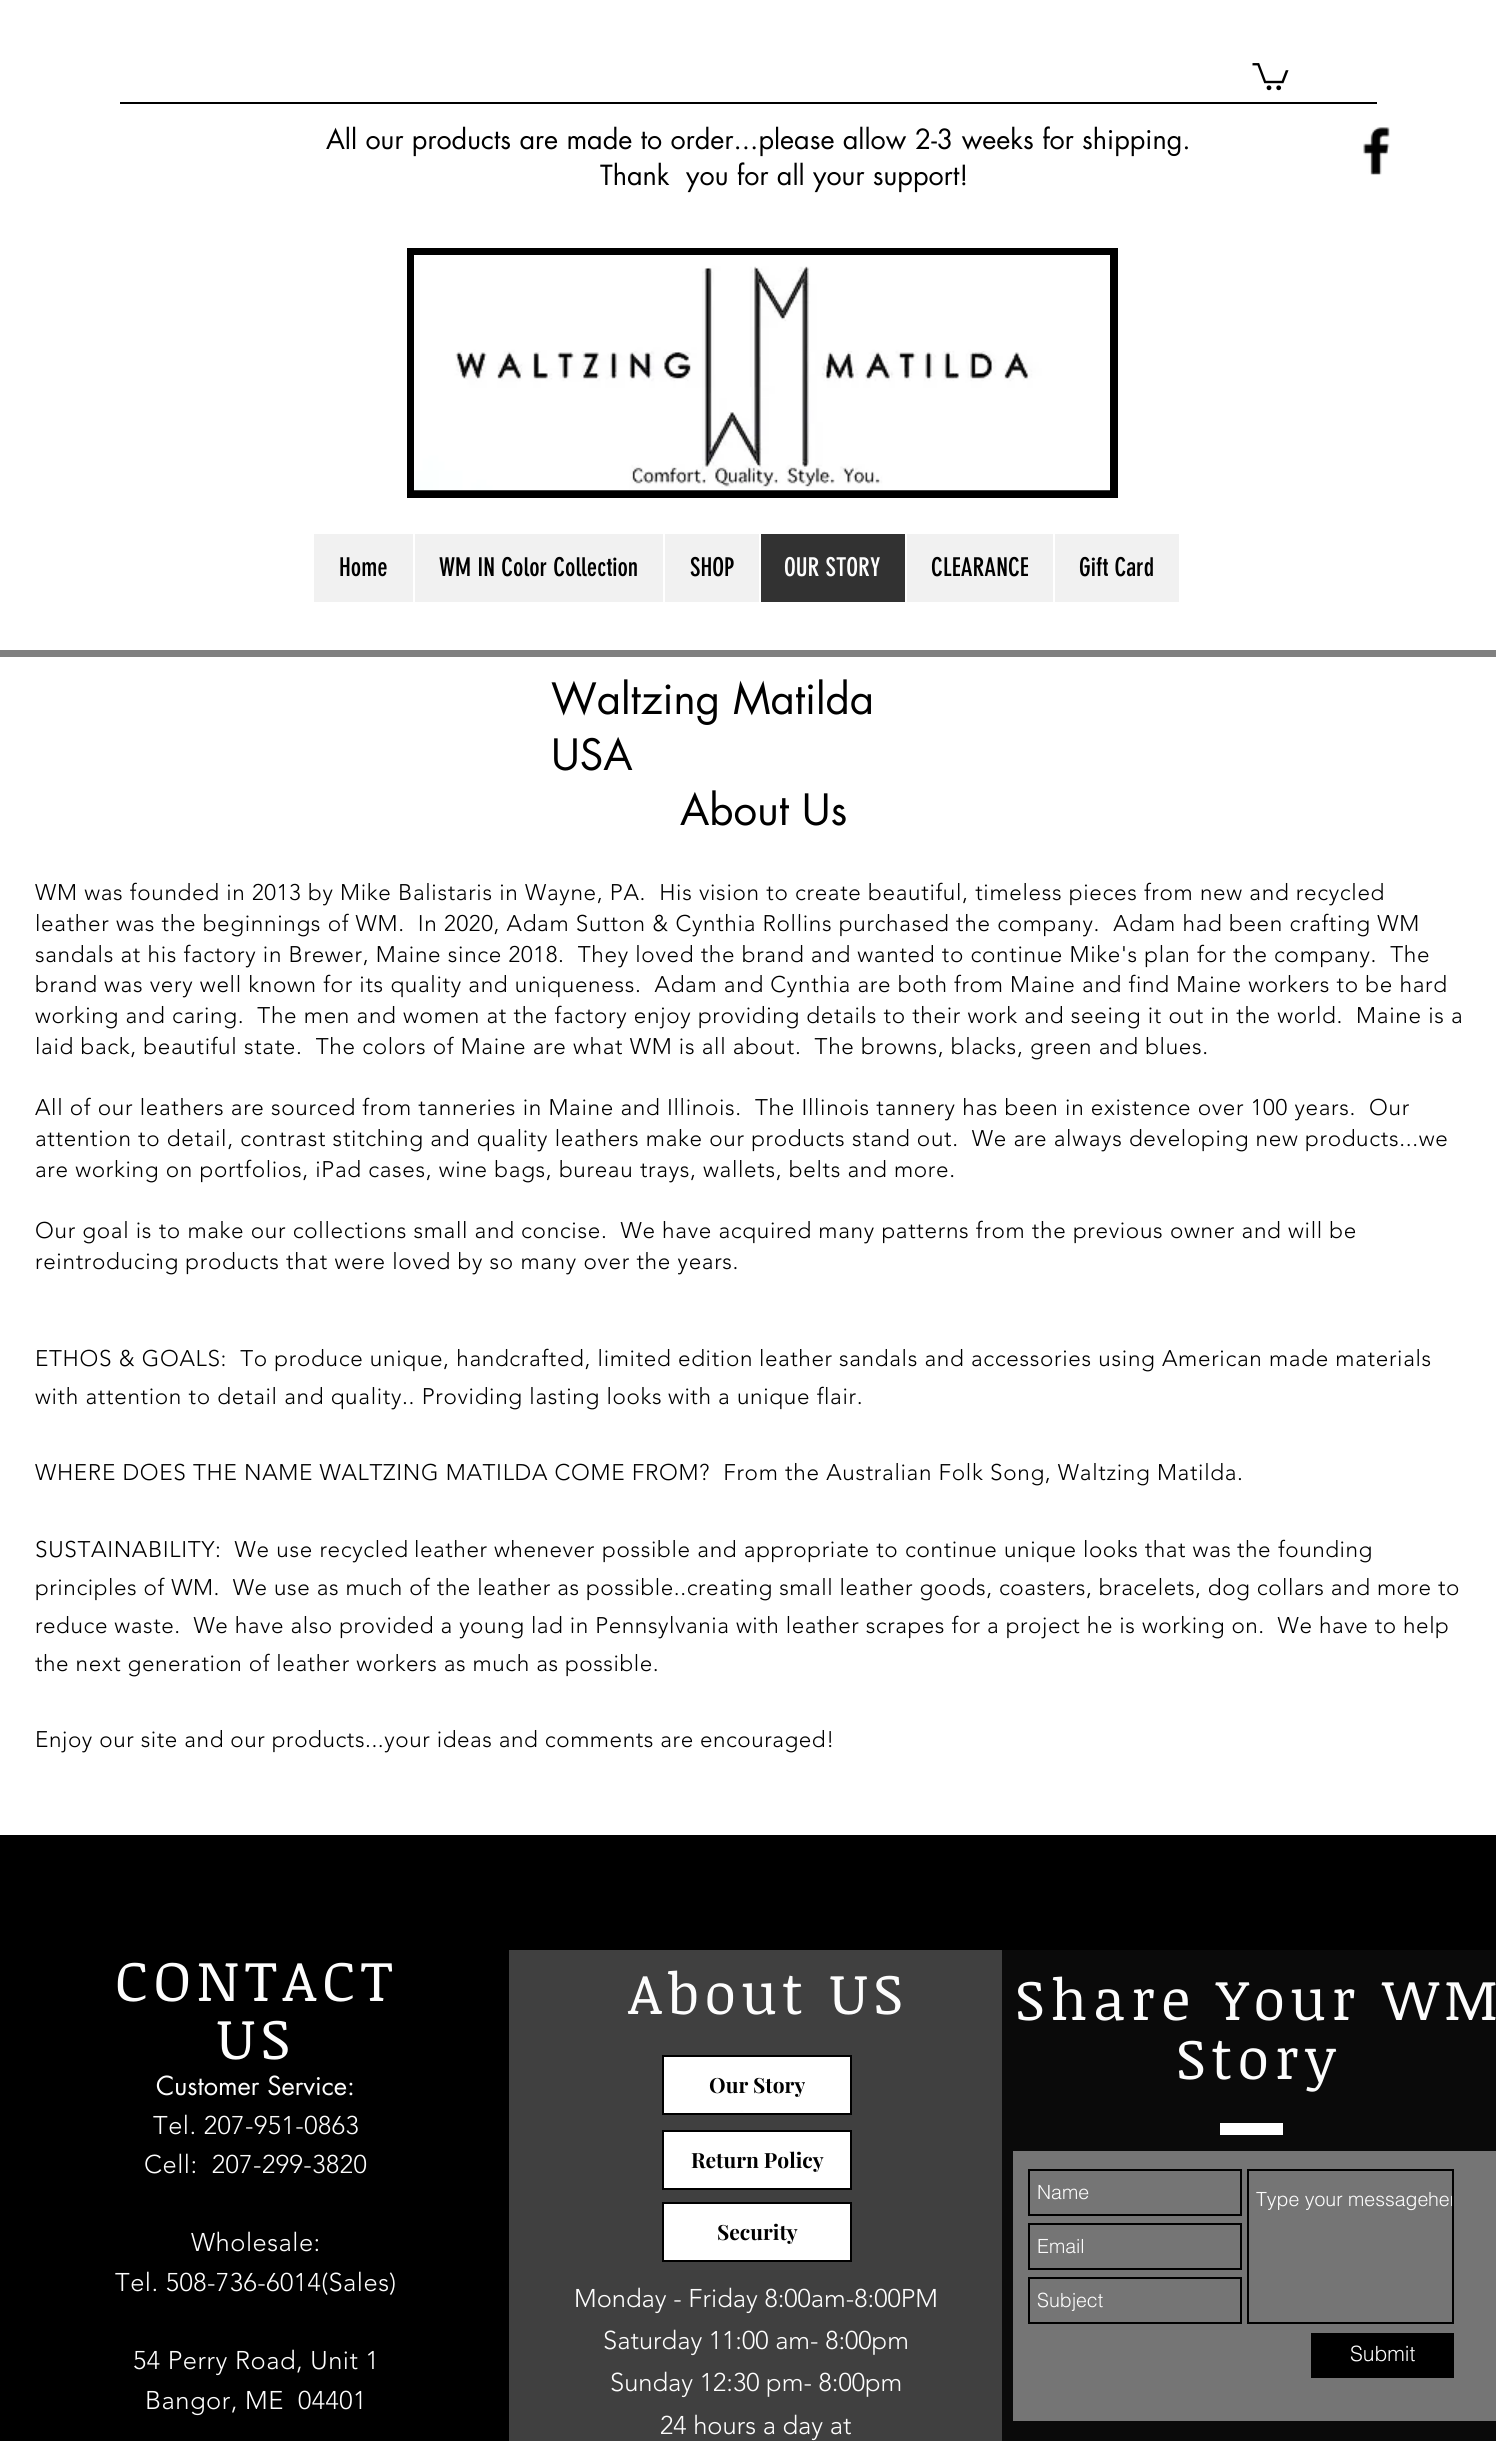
import math
import cairo

surface = cairo.ImageSurface(cairo.FORMAT_RGB24, 1496, 2441)
c = cairo.Context(surface)
options = cairo.FontOptions()
options.set_hint_metrics(cairo.HINT_METRICS_OFF)
options.set_hint_style(cairo.HINT_STYLE_NONE)
c.set_font_options(options)
c.set_miter_limit(4)
def C(code):
 c.set_source_rgb(*(v / 255 for v in bytes.fromhex(code[-6:])))
def F(family, size, italic, bold):
 c.select_font_face(family, cairo.FONT_SLANT_ITALIC if italic else cairo.FONT_SLANT_NORMAL, cairo.FONT_WEIGHT_BOLD if bold else cairo.FONT_WEIGHT_NORMAL)
 c.set_font_size(size)
def T(x, y, s):
 c.move_to(x, y)
 c.show_text(s)
def L(x, y, s, letter, word):
 c.move_to(x, y)
 for ch in s:
  c.show_text(ch)
  c.rel_move_to(letter + word * (ch == ' '), 0)
def R(x, y, w, h):
 c.rectangle(x, y, w, h)
 c.fill()
def I(path, x, y, w, h):
 c.save()
 c.set_source_surface(cairo.ImageSurface.create_from_png(path), x, y)
 c.rectangle(x, y, w, h)
 c.fill()
 c.restore()
C('ffffff')
c.paint()
I('1.png',1252,63,37,28)
C('000000')
R(120,102,1257,2)
F('futura',27,0,0)
T(326,149,'All our products are made to order...please allow 2-3 weeks for shipping.')
T(600,185,'Thank  you for all your support!')
I('2.png',1363,127,27,48)
R(407,248,711,250)
I('3.png',414,255,696,236)
C('f1f1f1')
R(314,534,865,68)
F('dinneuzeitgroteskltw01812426',25.5,0,0)
C('000000')
T(339,576,'Home')
C('ffffff')
R(413,534,2,68)
C('000000')
T(439,576,'WM IN Color Collection')
C('ffffff')
R(663,534,2,68)
C('000000')
T(690,576,'SHOP')
C('323232')
R(761,534,144,68)
C('ffffff')
R(759,534,2,68)
C('fdfdfd')
T(784,576,'OUR STORY')
C('ffffff')
R(905,534,2,68)
C('000000')
T(931,576,'CLEARANCE')
C('ffffff')
R(1053,534,2,68)
C('000000')
T(1079,576,'Gift Card')
C('808080')
R(0,650,1496,7)
F('futura',42,0,0)
C('000000')
T(551,714,'Waltzing Matilda')
T(551,770,'USA')
T(680,825,'About Us')
F('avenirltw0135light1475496 Light',22.5,0,0)
L(35,900,'WM was founded in 2013 by Mike Balistaris in Wayne, PA.  His vision to create beautiful, timeless pieces from new and recycled',.68,0)
L(35,931,'leather was the beginnings of WM.  In 2020, Adam Sutton & Cynthia Rollins purchased the company.  Adam had been crafting WM',.68,0)
L(35,962,'sandals at his factory in Brewer, Maine since 2018.  They loved the brand and wanted to continue Mike\'s plan for the company.  The',.68,0)
L(35,992,'brand was very well known for its quality and uniqueness.  Adam and Cynthia are both from Maine and find Maine workers to be hard',.68,0)
L(35,1023,'working and caring.  The men and women at the factory enjoy providing details to their work and seeing it out in the world.  Maine is a',.68,0)
L(35,1054,'laid back, beautiful state.  The colors of Maine are what WM is all about.  The browns, blacks, green and blues.',.68,0)
L(35,1115,'All of our leathers are sourced from tanneries in Maine and Illinois.  The Illinois tannery has been in existence over 100 years.  Our',.68,0)
L(35,1146,'attention to detail, contrast stitching and quality leathers make our products stand out.  We are always developing new products...we',.68,0)
L(35,1177,'are working on portfolios, iPad cases, wine bags, bureau trays, wallets, belts and more.',.68,0)
L(35,1238,'Our goal is to make our collections small and concise.  We have acquired many patterns from the previous owner and will be',.68,0)
L(35,1269,'reintroducing products that were loved by so many over the years.',.68,0)
L(35,1366,'ETHOS & GOALS:  To produce unique, handcrafted, limited edition',.68,0)
L(759,1366,'leather',.56,0)
L(839,1366,'sandals and accessories using American made materials',.68,0)
L(35,1404,'with attention to detail and quality.. Providing lasting looks',.68,0)
L(668,1404,'with',.56,0)
L(718,1404,'a unique flair.',.68,0)
L(35,1480,'WHERE DOES THE NAME WALTZING MATILDA COME FROM?  From the Australian Folk Song, Waltzing Matilda.',.68,0)
L(35,1557,'SUSTAINABILITY:  We use recycled',.68,0)
L(414,1557,'leather whenever',.56,0)
L(602,1557,'possible and appropriate to continue',.68,0)
L(1004,1557,'unique looks that was',.56,0)
L(1237,1557,'the',.5,0)
L(1278,1557,'founding',.56,0)
L(35,1595,'principles of WM.  We use as much of the leather as possible..creating small leather goods, coasters, bracelets, dog collars and more to',.56,0)
L(35,1633,'reduce waste.  We have also provided a young lad in Pennsylvania with leather scrapes for a project he is working on.  We have to help',.56,0)
L(35,1671,'the next generation of leather workers as much as possible.',.56,0)
L(35,1747,'Enjoy our site and our products...your ideas and comments are',.56,0)
L(700,1747,'encouraged!',.5,0)
R(0,1835,1496,115)
C('404040')
R(509,1950,493,491)
C('000000')
R(0,1950,509,491)
F('Noticia Text',57,0,0)
C('fdfdfd')
L(115,2001,'CONTACT',5.75,0)
L(217,2059,'US',5.75,0)
F('futura',25.5,0,0)
T(156,2095,'Customer Service:')
F('avenirltw0135light1475496 Light',25.5,0,0)
L(153,2134,'Tel. 207-951-0863',.5,0)
L(144,2173,'Cell:  207-299-3820',.5,0)
L(191,2251,'Wholesale:',.5,0)
L(115,2291,'Tel. 508-736-6014(Sales)',.5,0)
L(133,2369,'54 Perry Road, Unit 1',.5,0)
L(145,2409,'Bangor, ME  04401',.5,0)
F('Noticia Text',57,0,0)
L(628,2014,'About US',5.75,0)
C('ffffff')
c.rectangle(663,2056,188,58)
c.fill_preserve()
C('000000')
c.stroke()
F('Playfair Display',21,0,1)
T(709,2093,'Our Story')
C('ffffff')
c.rectangle(663,2131,188,58)
c.fill_preserve()
C('000000')
c.stroke()
T(691,2168,'Return Policy')
C('ffffff')
c.rectangle(663,2203,188,58)
c.fill_preserve()
C('000000')
c.stroke()
T(717,2240,'Security')
F('avenirltw0135light1475496 Light',25.5,0,0)
C('fdfdfd')
T(574,2307,'Monday - Friday 8:00am-8:00PM')
T(603,2349,'Saturday 11:00 am- 8:00pm')
T(610,2391,'Sunday 12:30 pm- 8:00pm')
T(660,2434,'24 hours a day at')
C('0a0a0a')
R(1002,1950,494,491)
F('Noticia Text',57,0,0)
C('fdfdfd')
L(1015,2020,'Share Your WM',5.75,0)
L(1176,2079,'Story',5.75,0)
C('ffffff')
R(1220,2123,63,12)
C('757575')
R(1013,2151,483,270)
c.rectangle(1029,2170,212,45)
C('000000')
c.stroke()
F('helvetica Light',19.5,0,0)
C('fdfdfd')
T(1037,2199,'Name')
c.rectangle(1248,2170,205,153)
C('000000')
c.stroke()
C('fdfdfd')
T(1256,2206,'Type your message')
c.save()
c.rectangle(1248,2171,204,151)
c.clip()
T(1428,2206,'her')
c.restore()
c.rectangle(1029,2224,212,45)
C('000000')
c.stroke()
C('fdfdfd')
T(1037,2253,'Email')
c.rectangle(1029,2278,212,45)
C('000000')
c.stroke()
C('fdfdfd')
T(1037,2307,'Subject')
C('000000')
R(1311,2333,143,45)
F('helvetica Light',21,0,0)
C('fdfdfd')
T(1350,2361,'Submit')
surface.write_to_png('o.png')
